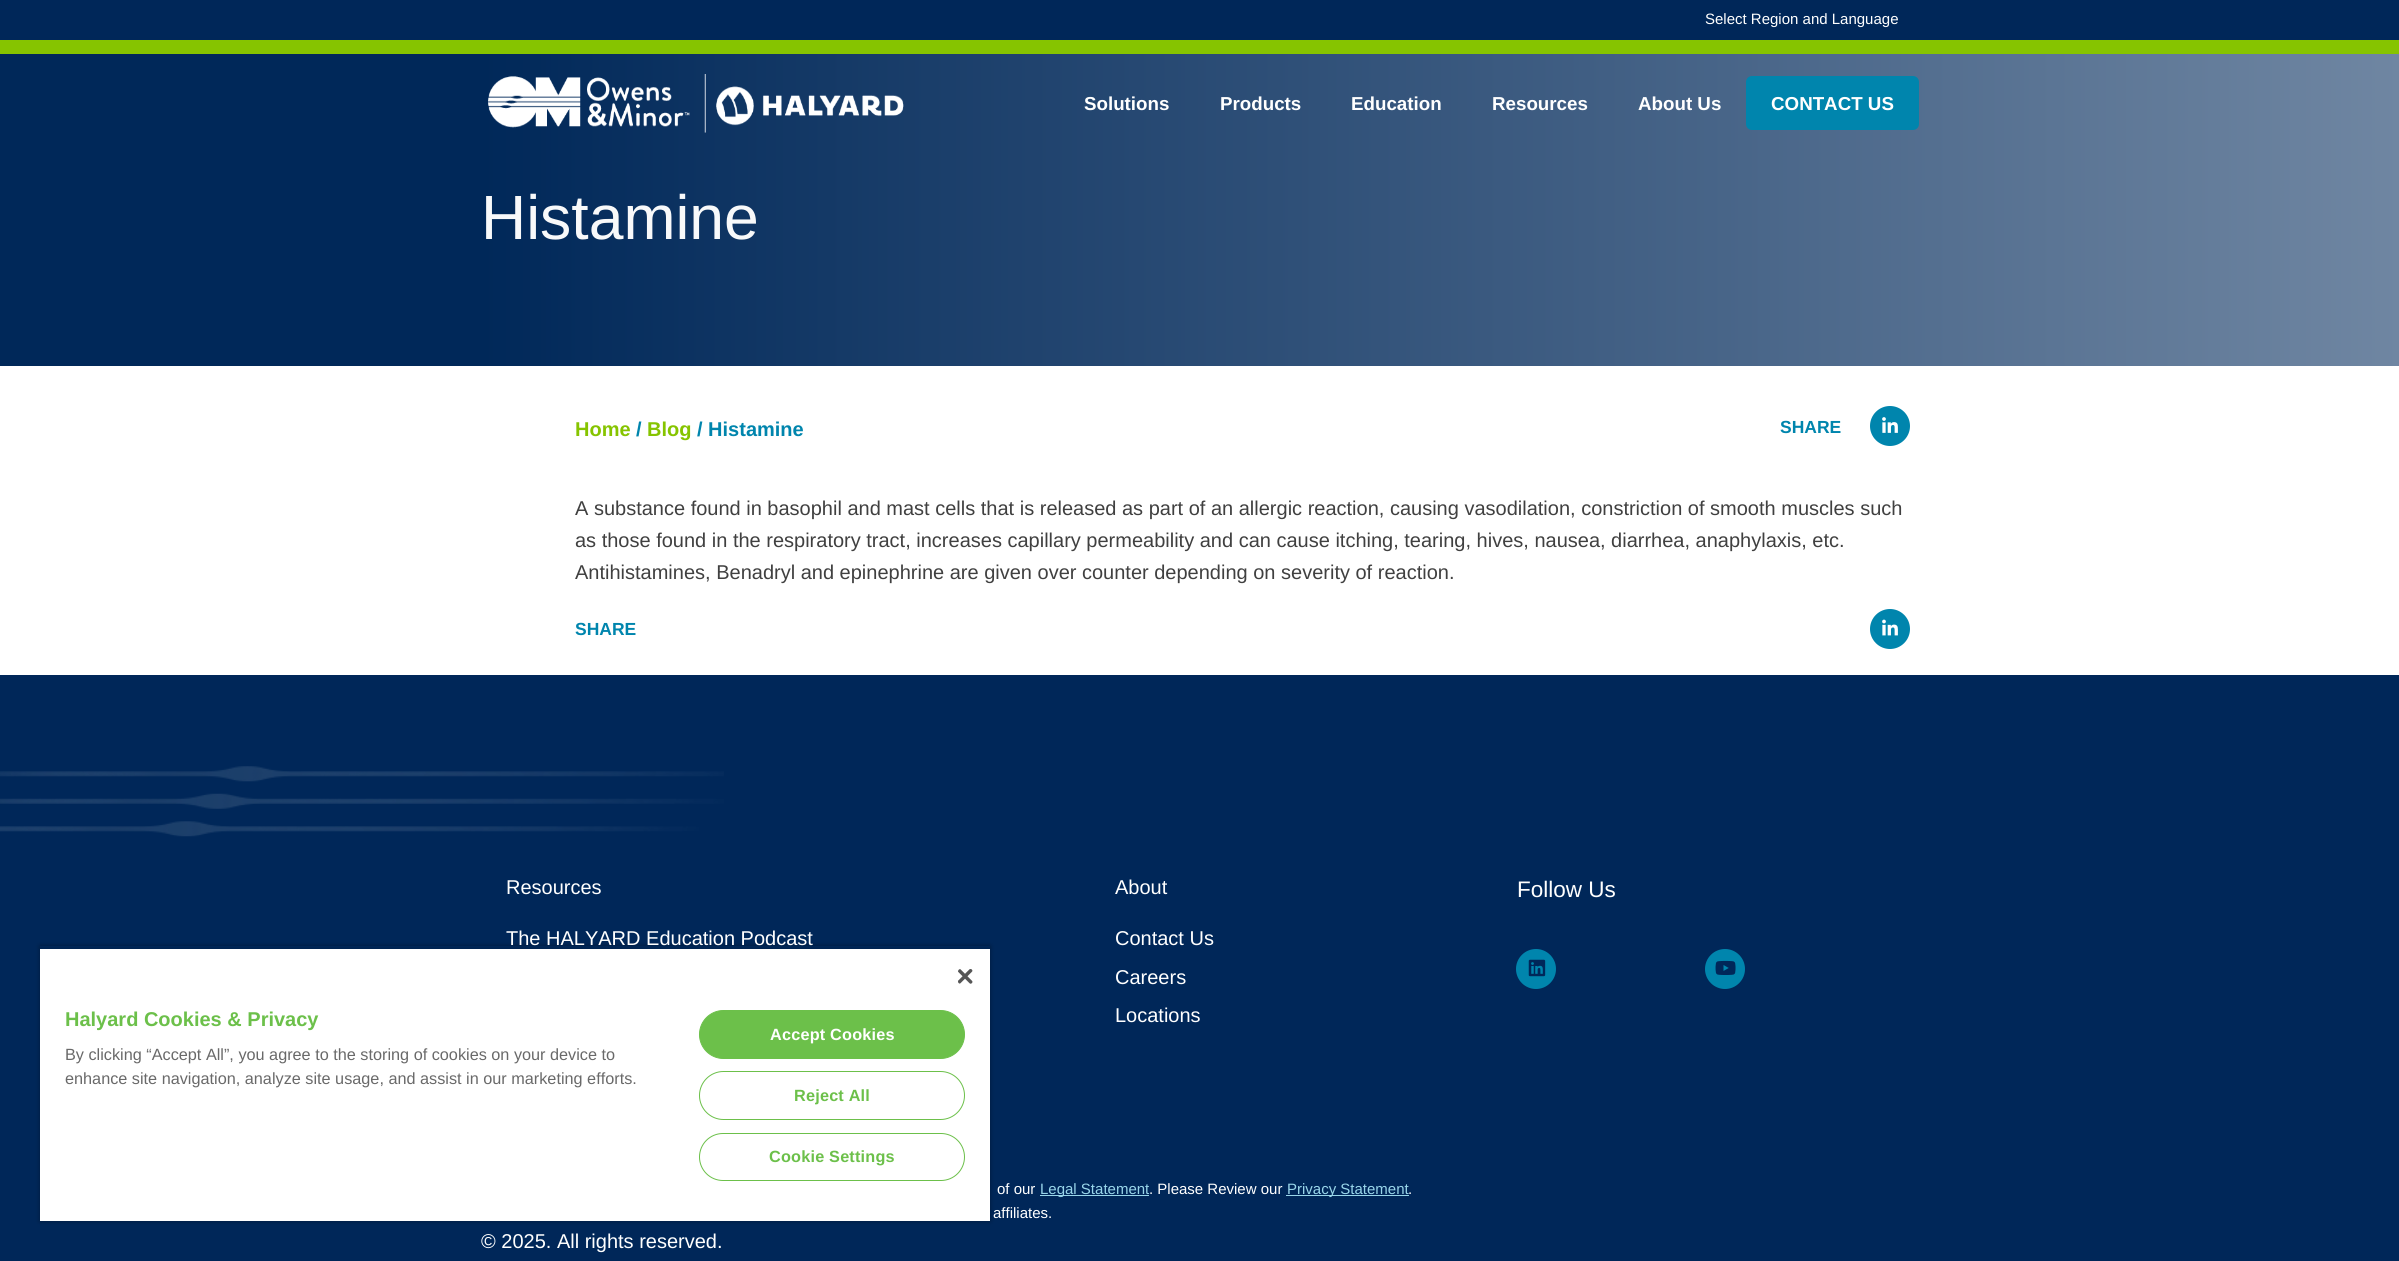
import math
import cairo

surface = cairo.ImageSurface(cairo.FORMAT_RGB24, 2399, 1261)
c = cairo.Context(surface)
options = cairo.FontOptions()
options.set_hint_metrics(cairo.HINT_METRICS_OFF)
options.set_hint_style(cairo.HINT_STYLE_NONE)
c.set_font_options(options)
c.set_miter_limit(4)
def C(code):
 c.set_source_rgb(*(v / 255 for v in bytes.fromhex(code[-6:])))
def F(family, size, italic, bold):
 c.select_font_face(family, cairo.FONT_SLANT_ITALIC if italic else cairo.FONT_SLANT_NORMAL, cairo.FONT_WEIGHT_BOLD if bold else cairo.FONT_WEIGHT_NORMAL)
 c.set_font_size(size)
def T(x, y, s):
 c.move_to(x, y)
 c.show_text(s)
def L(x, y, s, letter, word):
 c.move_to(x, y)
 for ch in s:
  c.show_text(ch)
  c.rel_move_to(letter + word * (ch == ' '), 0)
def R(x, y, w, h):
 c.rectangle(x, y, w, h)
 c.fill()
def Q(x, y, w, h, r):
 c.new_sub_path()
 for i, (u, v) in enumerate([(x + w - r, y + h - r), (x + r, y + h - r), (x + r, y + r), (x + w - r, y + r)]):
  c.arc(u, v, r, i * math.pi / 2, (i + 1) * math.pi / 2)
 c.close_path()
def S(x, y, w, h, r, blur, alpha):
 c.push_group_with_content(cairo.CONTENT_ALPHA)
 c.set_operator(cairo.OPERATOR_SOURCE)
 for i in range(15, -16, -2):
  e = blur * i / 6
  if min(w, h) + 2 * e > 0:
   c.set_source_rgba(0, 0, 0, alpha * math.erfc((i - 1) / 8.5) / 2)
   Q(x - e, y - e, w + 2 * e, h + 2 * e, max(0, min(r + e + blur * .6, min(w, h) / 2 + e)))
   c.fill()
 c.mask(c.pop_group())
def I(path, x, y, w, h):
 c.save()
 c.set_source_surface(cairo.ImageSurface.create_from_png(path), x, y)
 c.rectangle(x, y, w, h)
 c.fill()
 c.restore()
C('ffffff')
c.paint()
C('002759')
R(0,675,2399,586)
c.save()
c.set_fill_rule(cairo.FILL_RULE_EVEN_ODD)
c.new_path()
c.move_to(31,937)
c.line_to(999,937)
c.line_to(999,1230)
c.line_to(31,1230)
c.close_path()
c.move_to(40,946)
c.line_to(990,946)
c.line_to(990,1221)
c.line_to(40,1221)
c.close_path()
c.clip()
C('000000')
S(40,946,950,275,0,2.5,.35)
c.restore()
c.save()
c.rectangle(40,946,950,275)
c.clip()
C('000000')
S(40,949,950,272,0,2.5,.2)
c.restore()
C('ffffff')
R(40,949,950,272)
I('1.png',958,969,15,15)
F('Liberation Sans',20,0,1)
C('6cc04a')
T(65,1026,'Halyard Cookies & Privacy')
F('Liberation Sans',16.25,0,0)
C('696969')
T(65,1060,'By clicking “Accept All”, you agree to the storing of cookies on your device to')
T(65,1084,'enhance site navigation, analyze site usage, and assist in our marketing efforts.')
C('6cc04a')
Q(699.5,1010.5,265,48,24)
c.fill_preserve()
c.set_line_width(1)
c.stroke()
F('Liberation Sans',16.25,0,1)
C('ffffff')
L(770,1040,'Accept Cookies',.2,0)
Q(699.5,1071.5,265,48,24)
C('6cc04a')
c.stroke()
L(794,1101,'Reject All',.2,0)
Q(699.5,1133.5,265,47,23.5)
c.stroke()
L(769,1162,'Cookie Settings',.2,0)
C('002759')
R(0,0,2399,40)
F('Liberation Sans',15,0,0)
C('ffffff')
T(1705,24,'Select Region and Language')
C('86c400')
R(0,40,2399,14)
gradient = cairo.LinearGradient(0,178,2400,178)
gradient.add_color_stop_rgba(.2,0,0.157,0.349,1)
gradient.add_color_stop_rgba(1,0.435,0.525,0.635,1)
c.set_source(gradient)
R(0,54,2399,312)
I('2.png',488,74,416,59)
F('Liberation Sans',18.75,0,1)
C('ffffff')
T(1084,110,'Solutions')
T(1220,110,'Products')
T(1351,110,'Education')
T(1492,110,'Resources')
T(1638,110,'About Us')
C('0085ad')
Q(1746,76,173,54,6)
c.fill()
C('ffffff')
T(1771,110,'CONTACT US')
F('Liberation Sans',62.5,0,0)
C('f8f9fa')
T(481,239,'Histamine')
F('Liberation Sans',20,0,1)
C('86c400')
T(575,436,'Home')
C('0085ad')
T(636,436,'/')
C('86c400')
T(647,436,'Blog')
C('0085ad')
T(697,436,'/ Histamine')
F('Liberation Sans',17.5,0,1)
T(1780,433,'SHARE')
c.new_path()
c.arc(1890,426,20,0,2 * math.pi)
c.fill()
I('3.png',1882,417,16,16)
F('Liberation Sans',20,0,0)
C('404040')
T(575,515,'A substance found in basophil and mast cells that is released as part of an allergic reaction, causing vasodilation, constriction of smooth muscles such')
T(575,547,'as those found in the respiratory tract, increases capillary permeability and can cause itching, tearing, hives, nausea, diarrhea, anaphylaxis, etc.')
T(575,579,'Antihistamines, Benadryl and epinephrine are given over counter depending on severity of reaction.')
F('Liberation Sans',17.5,0,1)
C('0085ad')
T(575,635,'SHARE')
c.new_path()
c.arc(1890,629,20,0,2 * math.pi)
c.fill()
I('4.png',1882,619,16,17)
I('5.png',0,766,724,71)
F('Liberation Sans',20,0,0)
C('ffffff')
T(506,894,'Resources')
T(506,945,'The HALYARD Education Podcast')
T(1115,894,'About')
T(1115,945,'Contact Us')
T(1115,984,'Careers')
T(1115,1022,'Locations')
F('Liberation Sans',22.5,0,0)
T(1517,897,'Follow Us')
C('0085ad')
c.new_path()
c.arc(1536,969,20,0,2 * math.pi)
c.fill()
I('6.png',1528,959,18,18)
c.arc(1725,969,20,0,2 * math.pi)
c.fill()
I('7.png',1715,960,21,15)
F('Liberation Sans',15,0,0)
C('ffffff')
T(997,1194,'of our')
C('99d6ea')
R(1040,1195,109,1)
T(1040,1194,'Legal Statement')
C('ffffff')
T(1149,1194,'. Please Review our')
C('99d6ea')
R(1286,1195,123,1)
T(1287,1194,'Privacy Statement')
C('ffffff')
T(1408,1194,'.')
T(993,1218,'affiliates.')
F('Liberation Sans',20,0,0)
T(481,1248,'© 2025. All rights reserved.')
surface.write_to_png('o.png')
